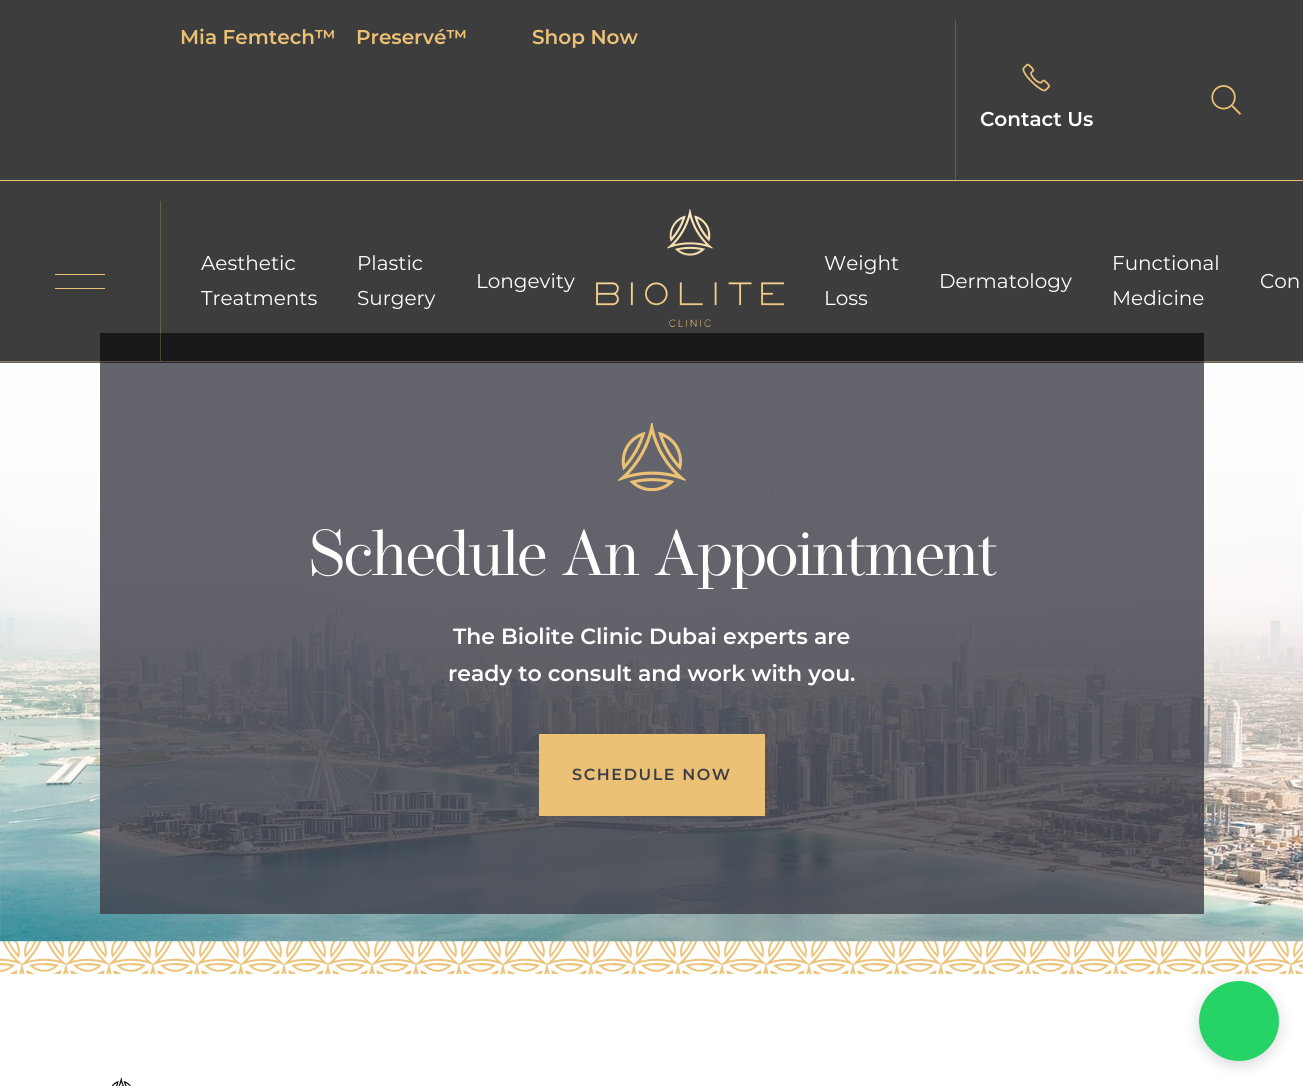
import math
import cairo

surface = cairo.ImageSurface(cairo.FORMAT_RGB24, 1303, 1086)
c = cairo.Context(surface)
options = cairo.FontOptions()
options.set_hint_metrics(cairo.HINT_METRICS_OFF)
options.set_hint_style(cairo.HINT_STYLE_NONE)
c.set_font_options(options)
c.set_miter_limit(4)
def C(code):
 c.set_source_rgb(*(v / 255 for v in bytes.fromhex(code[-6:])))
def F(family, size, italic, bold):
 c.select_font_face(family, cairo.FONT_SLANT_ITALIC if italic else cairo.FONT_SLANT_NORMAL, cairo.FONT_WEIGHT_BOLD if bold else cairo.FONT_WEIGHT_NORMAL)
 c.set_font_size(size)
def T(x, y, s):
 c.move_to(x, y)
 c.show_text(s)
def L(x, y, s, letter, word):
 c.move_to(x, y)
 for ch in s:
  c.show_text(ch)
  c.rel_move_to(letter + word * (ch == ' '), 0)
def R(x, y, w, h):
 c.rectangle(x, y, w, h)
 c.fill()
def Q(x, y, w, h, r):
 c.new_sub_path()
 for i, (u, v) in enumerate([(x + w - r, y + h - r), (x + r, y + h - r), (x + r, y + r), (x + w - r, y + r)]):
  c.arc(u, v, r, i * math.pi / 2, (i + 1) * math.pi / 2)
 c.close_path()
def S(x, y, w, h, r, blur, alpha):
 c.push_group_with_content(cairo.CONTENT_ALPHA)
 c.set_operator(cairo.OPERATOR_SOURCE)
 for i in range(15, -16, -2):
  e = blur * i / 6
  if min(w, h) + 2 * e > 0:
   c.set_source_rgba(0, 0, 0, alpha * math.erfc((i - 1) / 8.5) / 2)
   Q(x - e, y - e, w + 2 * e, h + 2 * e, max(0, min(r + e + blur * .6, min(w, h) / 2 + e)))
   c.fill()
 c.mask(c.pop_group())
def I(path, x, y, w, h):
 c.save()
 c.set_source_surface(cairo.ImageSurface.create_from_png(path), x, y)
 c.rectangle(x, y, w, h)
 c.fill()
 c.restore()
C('ffffff')
c.paint()
I('5.png',0,941,1303,33)
I('4.png',0,334,1303,608)
gradient = cairo.LinearGradient(652,330,652,1008)
gradient.add_color_stop_rgba(0,1,1,1,1)
gradient.add_color_stop_rgba(1,1,1,1,0)
c.set_source(gradient)
R(0,334,1303,640)
c.set_source_rgba(0.243,0.243,0.286,0.8)
R(100,333,1104,581)
c.set_source_rgba(0,0,0,0.6)
R(0,0,1303,363)
c.set_source_rgba(0.918,0.757,0.459,0.25)
R(0,361,1303,1)
c.set_source_rgba(0,0,0,0.4)
R(0,0,1303,180)
C('eac175')
R(0,180,1303,1)
F('Montserrat SemiBold',20,0,0)
T(180,44,'Mia Femtech™')
T(356,44,'Preservé™')
T(532,44,'Shop Now')
c.set_source_rgba(0.918,0.757,0.459,0.25)
R(955,20,1,160)
I('1.png',1022,63,29,29)
C('ffffff')
T(980,126,'Contact Us')
I('2.png',1211,85,30,30)
c.set_source_rgba(0,0,0,0.4)
R(0,181,1303,180)
c.set_source_rgba(0.918,0.757,0.459,0.25)
R(160,201,1,160)
C('eac175')
R(55,274,50,1)
R(55,288,50,1)
F('Montserrat',20,0,0)
C('ffffff')
T(201,270,'Aesthetic')
T(201,305,'Treatments')
T(357,270,'Plastic')
T(357,305,'Surgery')
T(476,288,'Longevity')
I('3.png',596,209,188,118)
T(824,270,'Weight')
T(824,305,'Loss')
T(939,288,'Dermatology')
T(1112,270,'Functional')
T(1112,305,'Medicine')
T(1260,288,'Con')
I('6.png',618,423,68,68)
F('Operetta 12',64,0,0)
L(308,575,'Schedule An Appointment',-1.9,0)
F('Montserrat SemiBold',22,0,0)
T(453,644,'The Biolite Clinic Dubai experts are')
T(448,681,'ready to consult and work with you.')
C('eac175')
R(539,734,226,82)
F('Montserrat SemiBold',16,0,0)
C('3e3e49')
L(572,780,'SCHEDULE NOW',1.6,0)
I('7.png',111,1077,20,9)
C('000000')
S(1199,985,80,80,40,7.5,.15)
C('25d366')
c.arc(1239,1021,40,0,2 * math.pi)
c.fill()
surface.write_to_png('o.png')
